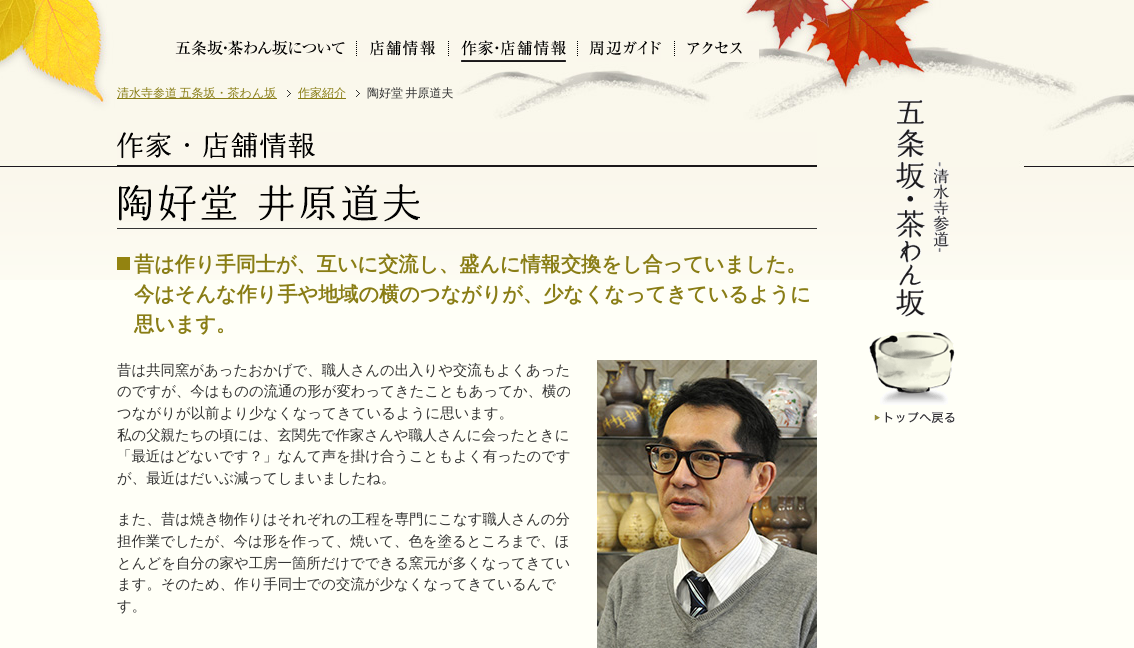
import math
import cairo

surface = cairo.ImageSurface(cairo.FORMAT_RGB24, 1134, 648)
c = cairo.Context(surface)
options = cairo.FontOptions()
options.set_hint_metrics(cairo.HINT_METRICS_OFF)
options.set_hint_style(cairo.HINT_STYLE_NONE)
c.set_font_options(options)
c.set_miter_limit(4)
def C(code):
 c.set_source_rgb(*(v / 255 for v in bytes.fromhex(code[-6:])))
def F(family, size, italic, bold):
 c.select_font_face(family, cairo.FONT_SLANT_ITALIC if italic else cairo.FONT_SLANT_NORMAL, cairo.FONT_WEIGHT_BOLD if bold else cairo.FONT_WEIGHT_NORMAL)
 c.set_font_size(size)
def T(x, y, s):
 c.move_to(x, y)
 c.show_text(s)
def L(x, y, s, letter, word):
 c.move_to(x, y)
 for ch in s:
  c.show_text(ch)
  c.rel_move_to(letter + word * (ch == ' '), 0)
def R(x, y, w, h):
 c.rectangle(x, y, w, h)
 c.fill()
def I(path, x, y, w, h):
 c.save()
 c.set_source_surface(cairo.ImageSurface.create_from_png(path), x, y)
 c.rectangle(x, y, w, h)
 c.fill()
 c.restore()
C('fffff7')
c.paint()
I('1.png',0,167,1134,113)
I('2.png',0,0,1134,167)
I('3.png',467,0,546,118)
I('4.png',175,40,170,22)
C('faf7ec')
R(176,60,165,2)
I('5.png',356,40,80,22)
R(368,60,67,2)
I('6.png',448,40,118,22)
I('7.png',577,41,84,21)
R(589,60,71,2)
I('8.png',674,41,85,21)
R(686,60,58,2)
C('897d15')
R(117,98,160,1)
F('WenQuanYi Zen Hei Medium',12,0,0)
L(117,97,'清水寺参道 五条坂・茶わん坂',0,-1)
I('9.png',287,90,4,7)
R(298,98,48,1)
T(298,97,'作家紹介')
I('9.png',356,90,4,7)
C('333333')
L(367,97,'陶好堂 井原道夫',0,-1)
I('10.png',117,132,700,35)
R(117,228,700,1)
I('11.png',119,184,301,38)
C('938310')
R(117,257,13,13)
F('WenQuanYi Zen Hei',20.15,0,1)
C('897d15')
T(134,271,'昔は作り手同士が、互いに交流し、盛んに情報交換をし合っていました。')
T(134,301,'今はそんな作り手や地域の横のつながりが、少なくなってきているように')
T(134,331,'思います。')
F('WenQuanYi Zen Hei Medium',14.4,0,0)
C('333333')
T(117,375,'昔は共同窯があったおかげで、職人さんの出入りや交流もよくあった')
T(117,396,'のですが、今はものの流通の形が変わってきたこともあってか、横の')
T(117,418,'つながりが以前より少なくなってきているように思います。')
T(117,440,'私の父親たちの頃には、玄関先で作家さんや職人さんに会ったときに')
T(117,461,'「最近はどないです？」なんて声を掛け合うこともよく有ったのです')
T(117,483,'が、最近はだいぶ減ってしまいましたね。')
T(117,524,'また、昔は焼き物作りはそれぞれの工程を専門にこなす職人さんの分')
T(117,546,'担作業でしたが、今は形を作って、焼いて、色を塗るところまで、ほ')
T(117,568,'とんどを自分の家や工房一箇所だけでできる窯元が多くなってきてい')
T(117,589,'ます。そのため、作り手同士での交流が少なくなってきているんで')
T(117,611,'す。')
I('12.png',597,360,220,288)
I('13.png',869,100,86,323)
surface.write_to_png('o.png')
